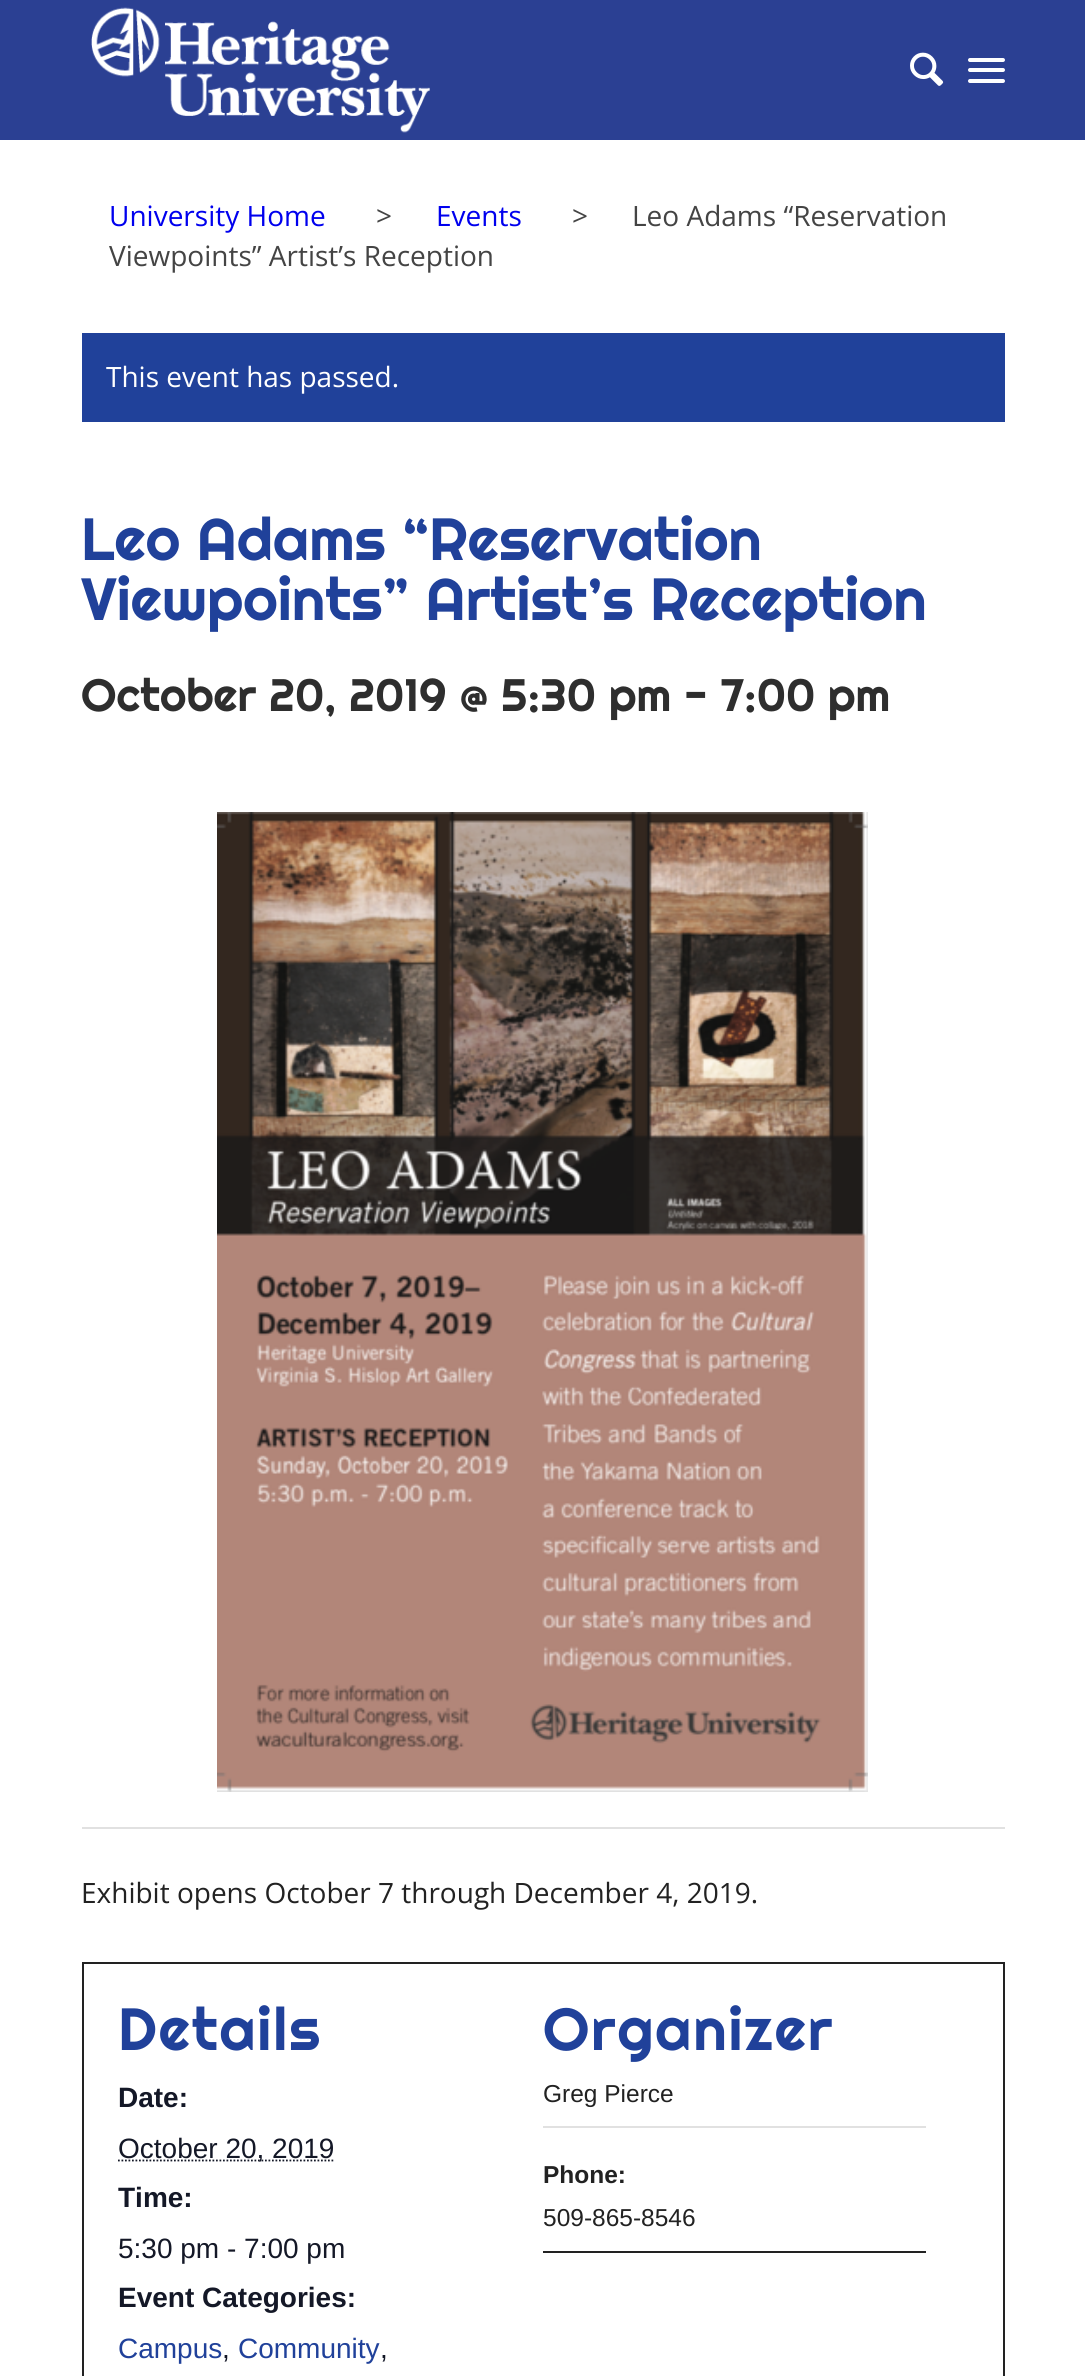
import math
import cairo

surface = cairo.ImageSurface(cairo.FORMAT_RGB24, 1085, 2376)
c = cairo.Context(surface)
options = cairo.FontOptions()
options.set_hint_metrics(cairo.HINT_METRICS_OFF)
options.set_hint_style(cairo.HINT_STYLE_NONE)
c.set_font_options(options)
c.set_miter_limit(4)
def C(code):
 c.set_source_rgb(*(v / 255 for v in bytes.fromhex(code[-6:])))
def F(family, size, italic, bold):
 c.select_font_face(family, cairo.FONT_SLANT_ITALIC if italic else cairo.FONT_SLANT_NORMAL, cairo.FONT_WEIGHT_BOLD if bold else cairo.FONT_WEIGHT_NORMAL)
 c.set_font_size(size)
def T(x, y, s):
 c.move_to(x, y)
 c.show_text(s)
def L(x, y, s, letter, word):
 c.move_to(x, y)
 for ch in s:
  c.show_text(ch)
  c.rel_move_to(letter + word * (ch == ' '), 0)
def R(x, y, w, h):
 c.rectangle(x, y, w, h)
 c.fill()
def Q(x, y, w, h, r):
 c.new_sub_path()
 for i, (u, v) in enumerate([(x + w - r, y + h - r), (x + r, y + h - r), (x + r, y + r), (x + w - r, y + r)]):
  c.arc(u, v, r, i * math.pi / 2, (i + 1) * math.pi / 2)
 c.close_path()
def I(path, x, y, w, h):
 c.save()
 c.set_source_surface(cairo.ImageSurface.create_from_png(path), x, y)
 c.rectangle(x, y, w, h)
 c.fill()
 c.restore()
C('ffffff')
c.paint()
C('2b4093')
R(0,0,1085,140)
I('1.png',91,7,339,126)
I('2.png',910,52,34,34)
C('ffffff')
Q(968,68,37,4,2)
c.fill()
Q(968,58,37,4,2)
c.fill()
Q(968,79,37,4,2)
c.fill()
F('Open Sans',28,0,0)
C('0000ee')
T(109,226,'University Home')
C('444444')
T(376,226,'>')
C('0000ee')
T(436,226,'Events')
C('444444')
T(572,226,'>')
T(632,226,'Leo Adams “Reservation')
T(109,266,'Viewpoints” Artist’s Reception')
C('20419a')
R(82,333,923,89)
C('ffffff')
T(106,387,'This event has passed.')
F('Righteous',59.5,0,0)
C('20419a')
T(81,560,'Leo Adams “Reservation')
T(81,620,'Viewpoints” Artist’s Reception')
F('Righteous',45.5,0,0)
C('2e2e2e')
T(81,711,'October 20, 2019 @ 5:30 pm - 7:00 pm')
C('e1e1e1')
R(82,1827,923,2)
I('3.png',217,812,651,980)
F('Open Sans',28,0,0)
C('222222')
T(81,1903,'Exhibit opens October 7 through December 4, 2019.')
c.rectangle(83,1963,921,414)
c.stroke()
F('Righteous',59.5,0,0)
C('20419a')
L(118,2050,'Details',1.75,0)
F('Liberation Sans',28,0,1)
C('141827')
T(118,2107,'Date:')
c.new_path()
c.move_to(118,2160.5)
c.line_to(334.5,2160.5)
c.set_line_width(1.8)
c.set_dash([1.75,1.75])
c.stroke()
F('Liberation Sans',28,0,0)
T(118,2158,'October 20, 2019')
F('Liberation Sans',28,0,1)
T(118,2207,'Time:')
F('Liberation Sans',28,0,0)
T(118,2258,'5:30 pm - 7:00 pm')
F('Liberation Sans',28,0,1)
T(118,2307,'Event Categories:')
F('Liberation Sans',28,0,0)
C('20419a')
T(118,2358,'Campus')
C('141827')
T(222,2358,',')
C('20419a')
T(238,2358,'Community')
C('141827')
T(380,2358,',')
F('Righteous',59.5,0,0)
C('20419a')
L(543,2050,'Organizer',1.75,0)
C('e1e1e1')
R(543,2126,383,2)
F('Liberation Sans',24.5,0,0)
C('222222')
T(543,2102,'Greg Pierce')
F('Liberation Sans',24.5,0,1)
T(543,2183,'Phone:')
R(543,2251,383,2)
F('Liberation Sans',24.5,0,0)
T(543,2226,'509-865-8546')
surface.write_to_png('o.png')
